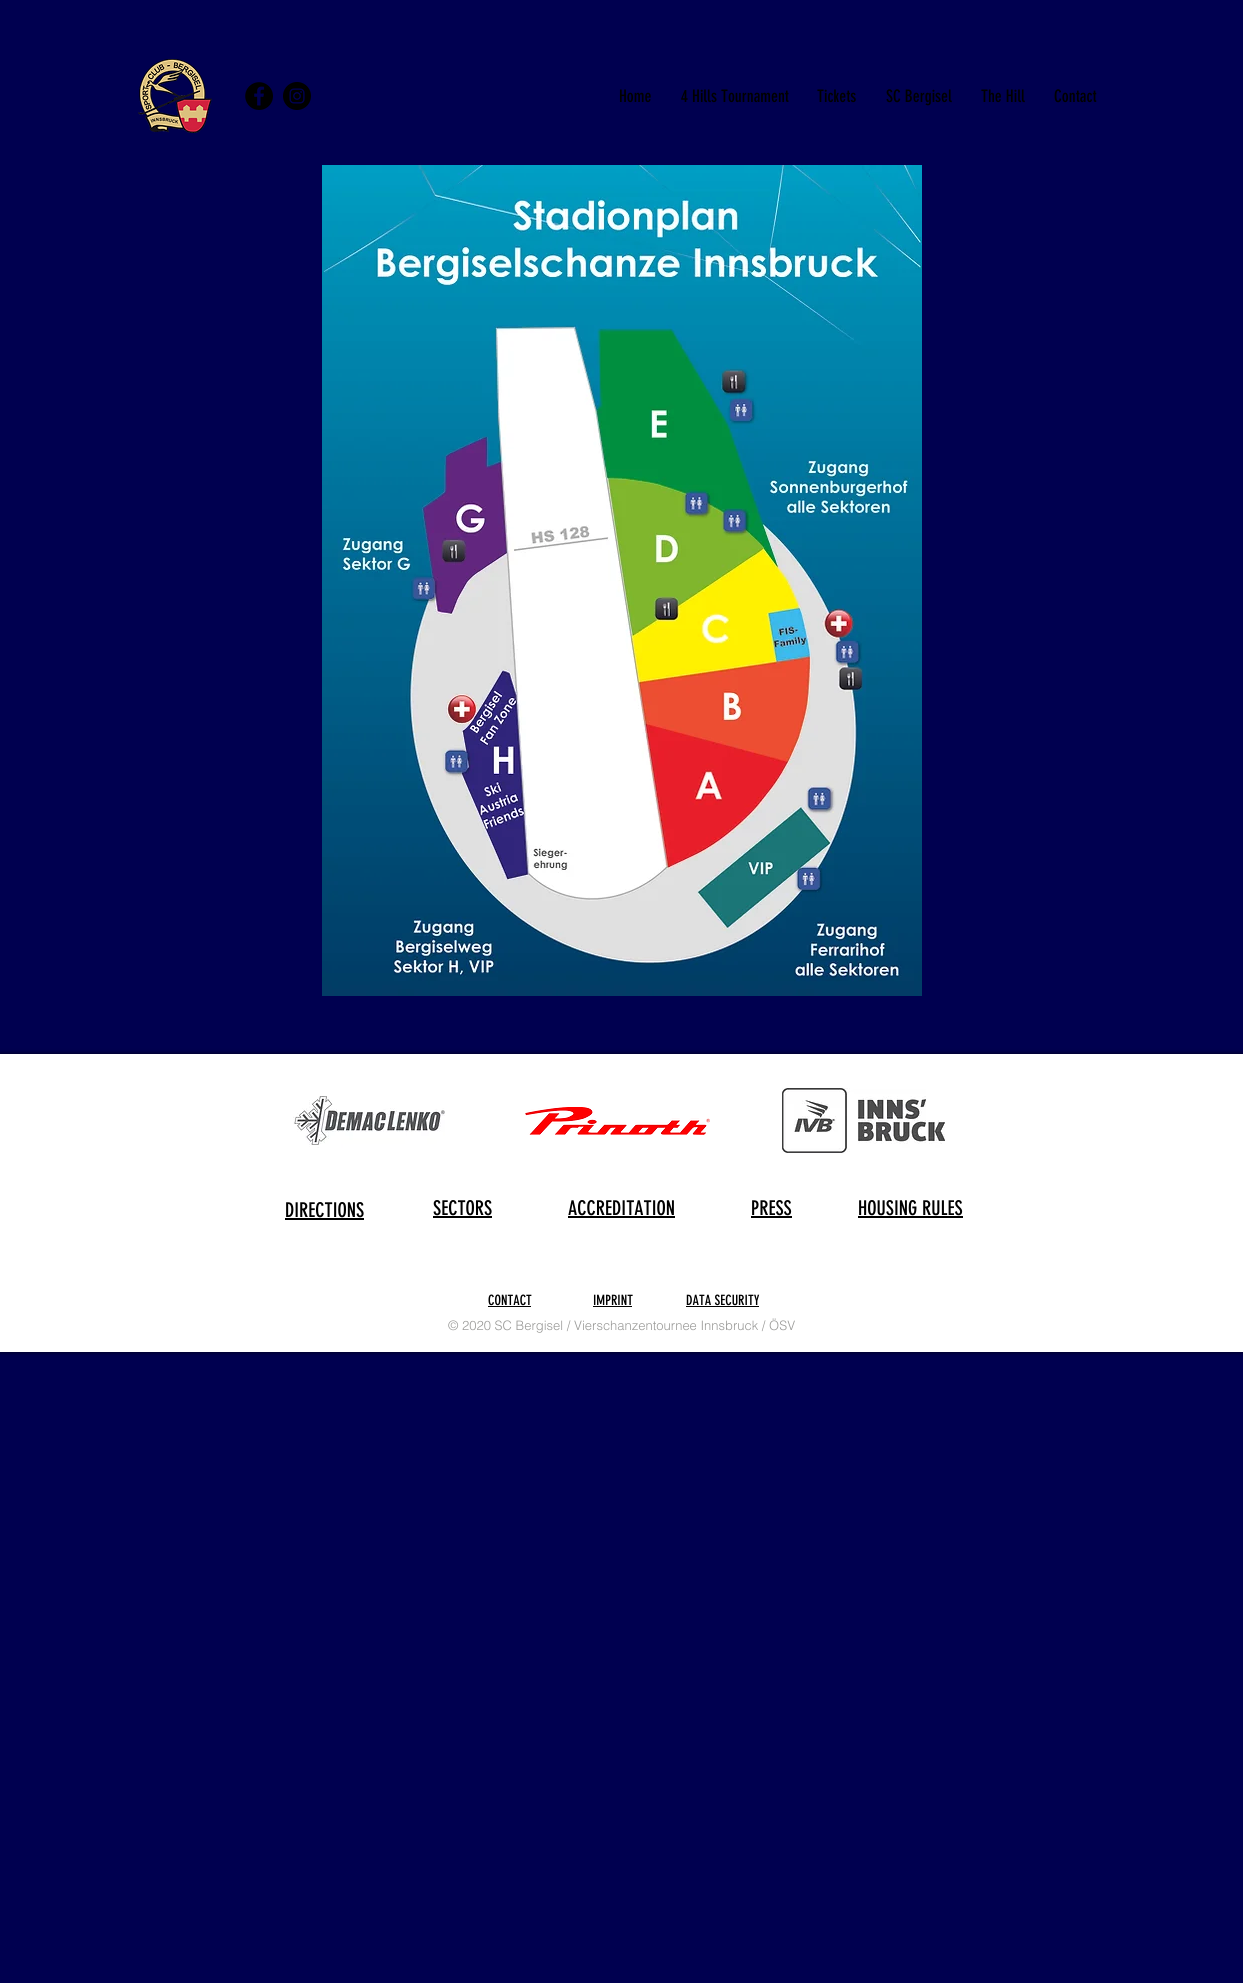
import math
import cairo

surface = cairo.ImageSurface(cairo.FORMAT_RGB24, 1243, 1983)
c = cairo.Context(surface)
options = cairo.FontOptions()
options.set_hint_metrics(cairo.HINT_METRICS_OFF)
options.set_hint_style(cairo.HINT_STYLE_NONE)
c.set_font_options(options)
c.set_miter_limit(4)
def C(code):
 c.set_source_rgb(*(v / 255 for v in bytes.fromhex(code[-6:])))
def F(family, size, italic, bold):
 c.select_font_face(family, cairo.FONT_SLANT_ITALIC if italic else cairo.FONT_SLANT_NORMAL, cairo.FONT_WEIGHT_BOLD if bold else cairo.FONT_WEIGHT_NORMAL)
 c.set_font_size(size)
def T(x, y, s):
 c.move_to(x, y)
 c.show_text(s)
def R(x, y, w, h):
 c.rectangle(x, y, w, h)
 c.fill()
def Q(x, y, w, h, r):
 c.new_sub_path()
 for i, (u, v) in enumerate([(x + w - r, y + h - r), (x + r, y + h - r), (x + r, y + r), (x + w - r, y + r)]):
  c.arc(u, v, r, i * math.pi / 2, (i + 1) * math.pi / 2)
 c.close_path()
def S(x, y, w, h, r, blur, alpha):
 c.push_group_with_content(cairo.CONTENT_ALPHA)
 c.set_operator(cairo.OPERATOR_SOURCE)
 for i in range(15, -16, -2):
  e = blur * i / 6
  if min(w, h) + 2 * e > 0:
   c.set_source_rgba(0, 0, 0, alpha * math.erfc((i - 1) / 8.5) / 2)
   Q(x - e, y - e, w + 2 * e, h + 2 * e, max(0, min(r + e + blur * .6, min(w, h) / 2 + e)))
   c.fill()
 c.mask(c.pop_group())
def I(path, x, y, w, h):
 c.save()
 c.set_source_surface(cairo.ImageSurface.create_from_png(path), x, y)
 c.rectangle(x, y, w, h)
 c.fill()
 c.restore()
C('000050')
c.paint()
I('1.png',138,59,74,74)
I('2.png',245,82,28,28)
I('3.png',283,82,28,28)
F('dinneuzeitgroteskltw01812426',17,0,0)
C('000000')
T(619,102,'Home')
T(681,102,'4 Hills Tournament')
T(817,102,'Tickets')
T(886,102,'SC Bergisel')
T(981,102,'The Hill')
T(1054,102,'Contact')
I('4.png',322,165,600,831)
C('000000')
S(0,1054,1243,298,0,2.5,.7)
C('ffffff')
R(0,1054,1243,298)
I('5.png',293,1096,152,52)
I('6.png',525,1107,185,28)
I('7.png',782,1088,163,65)
F('dinneuzeitgroteskltw01812426',20,0,0)
C('000000')
T(285,1217,'DIRECTIONS')
R(285,1218,79,2)
T(433,1215,'SECTORS')
R(433,1216,59,2)
T(568,1215,'ACCREDITATION')
R(568,1216,107,2)
T(751,1215,'PRESS')
R(751,1216,41,2)
T(858,1215,'HOUSING RULES')
R(858,1216,105,2)
F('dinneuzeitgroteskltw01812426',14,0,0)
T(488,1305,'CONTACT')
R(488,1306,43,1)
T(593,1305,'IMPRINT')
R(593,1306,39,1)
T(686,1305,'DATA SECURITY')
R(686,1306,73,1)
F('helvetica Light',13,0,0)
C('999997')
T(448,1330,'© 2020 SC Bergisel / Vierschanzentournee Innsbruck / ÖSV')
surface.write_to_png('o.png')
